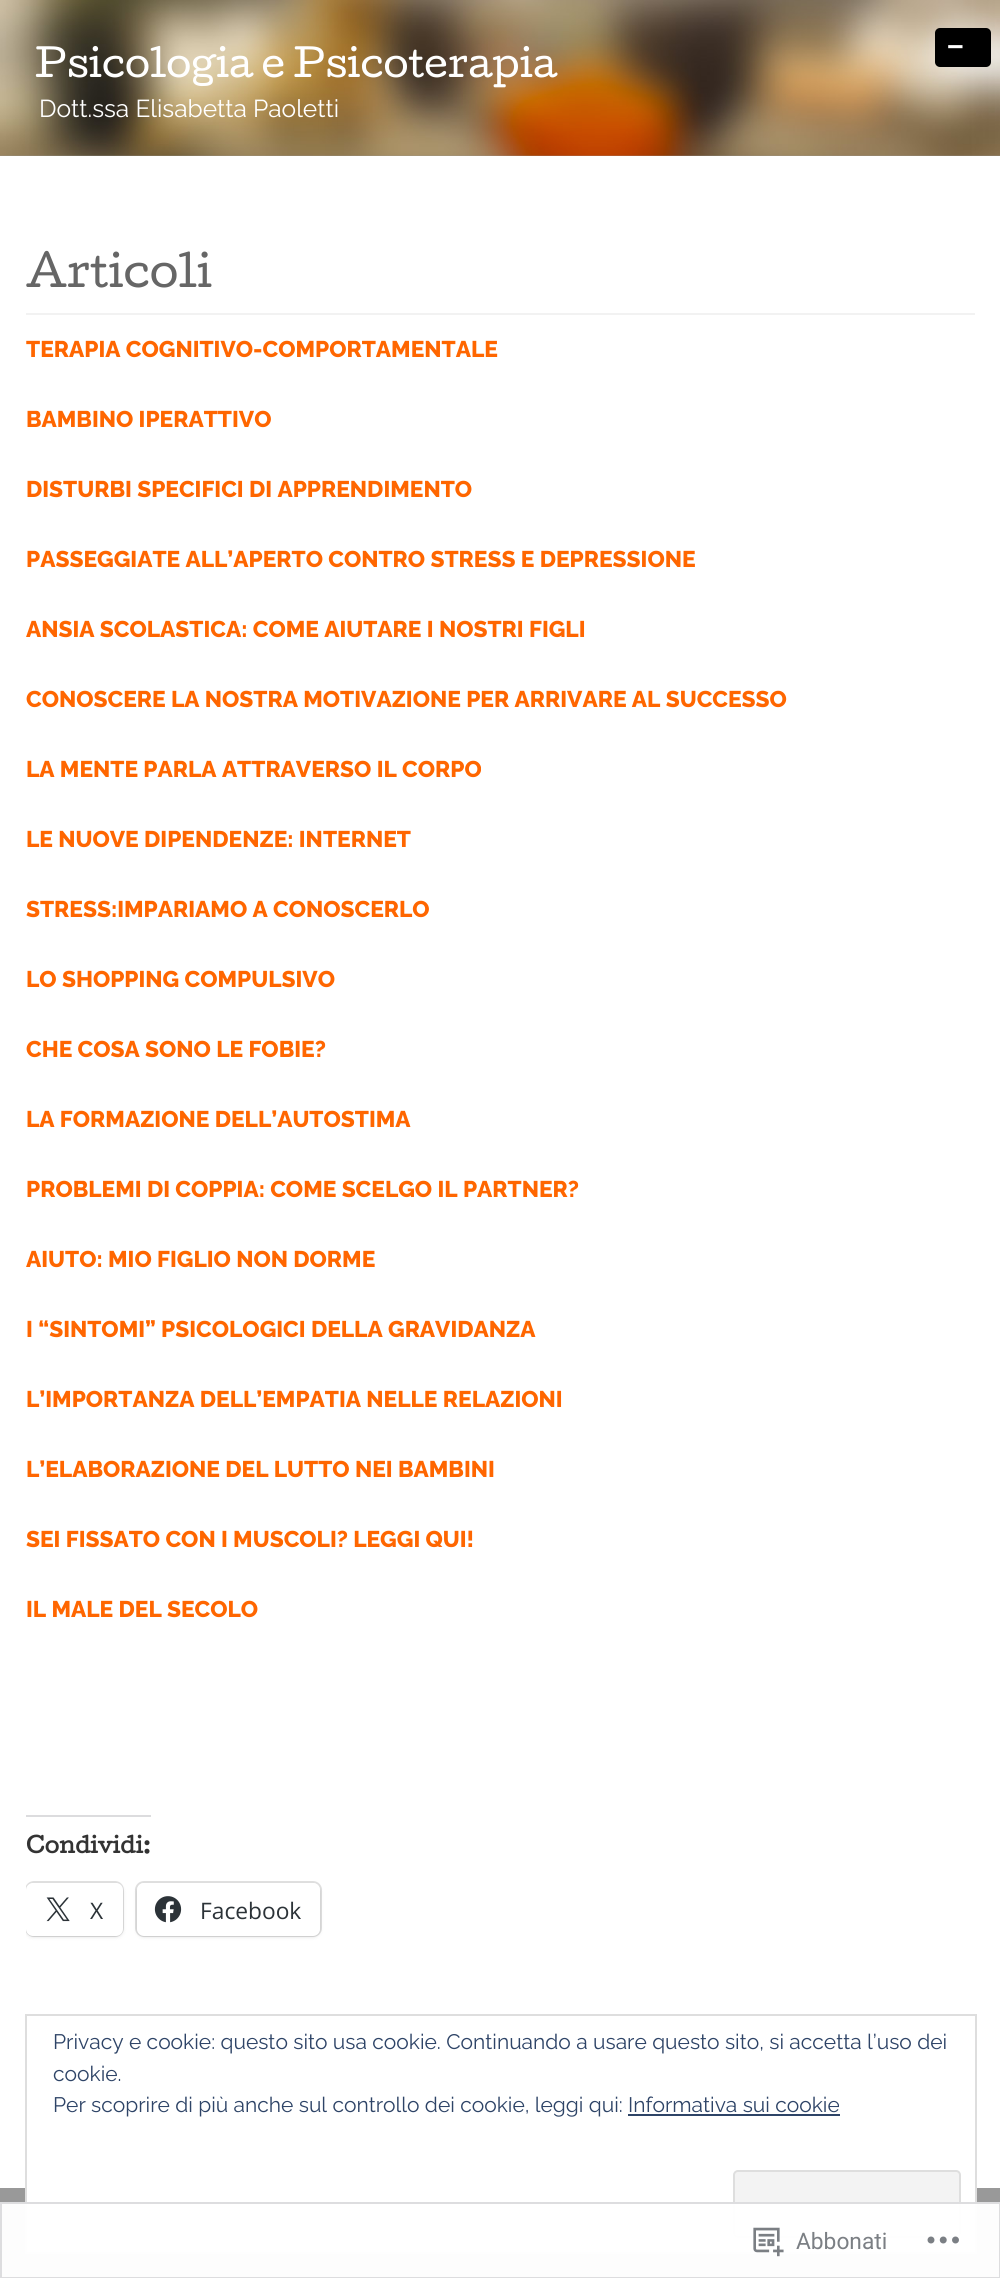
import math
import cairo

surface = cairo.ImageSurface(cairo.FORMAT_RGB24, 1000, 2278)
c = cairo.Context(surface)
options = cairo.FontOptions()
options.set_hint_metrics(cairo.HINT_METRICS_OFF)
options.set_hint_style(cairo.HINT_STYLE_NONE)
c.set_font_options(options)
c.set_miter_limit(4)
def C(code):
 c.set_source_rgb(*(v / 255 for v in bytes.fromhex(code[-6:])))
def F(family, size, italic, bold):
 c.select_font_face(family, cairo.FONT_SLANT_ITALIC if italic else cairo.FONT_SLANT_NORMAL, cairo.FONT_WEIGHT_BOLD if bold else cairo.FONT_WEIGHT_NORMAL)
 c.set_font_size(size)
def T(x, y, s):
 c.move_to(x, y)
 c.show_text(s)
def R(x, y, w, h):
 c.rectangle(x, y, w, h)
 c.fill()
def Q(x, y, w, h, r):
 c.new_sub_path()
 for i, (u, v) in enumerate([(x + w - r, y + h - r), (x + r, y + h - r), (x + r, y + r), (x + w - r, y + r)]):
  c.arc(u, v, r, i * math.pi / 2, (i + 1) * math.pi / 2)
 c.close_path()
def S(x, y, w, h, r, blur, alpha):
 c.push_group_with_content(cairo.CONTENT_ALPHA)
 c.set_operator(cairo.OPERATOR_SOURCE)
 for i in range(15, -16, -2):
  e = blur * i / 6
  if min(w, h) + 2 * e > 0:
   c.set_source_rgba(0, 0, 0, alpha * math.erfc((i - 1) / 8.5) / 2)
   Q(x - e, y - e, w + 2 * e, h + 2 * e, max(0, min(r + e + blur * .6, min(w, h) / 2 + e)))
   c.fill()
 c.mask(c.pop_group())
def I(path, x, y, w, h):
 c.save()
 c.set_source_surface(cairo.ImageSurface.create_from_png(path), x, y)
 c.rectangle(x, y, w, h)
 c.fill()
 c.restore()
C('999999')
c.paint()
I('1.png',0,0,1000,156)
F('Cutive',36.75,0,0)
C('ffffff')
T(35,77,'Psicologia e Psicoterapia')
F('Raleway',24.5,0,0)
T(39,117,'Dott.ssa Elisabetta Paoletti')
C('000000')
Q(935,28,56,39,5)
c.fill()
F('Raleway',49,0,0)
C('ffffff')
T(945,60,'-')
R(0,156,1000,2032)
C('f2f2f2')
R(26,313,949,2)
F('Cutive',42,0,0)
C('666666')
T(26,287,'Articoli')
F('Raleway ExtraBold',22.75,0,0)
C('ff6600')
T(26,357,'TERAPIA COGNITIVO-COMPORTAMENTALE')
T(26,427,'BAMBINO IPERATTIVO')
T(26,497,'DISTURBI SPECIFICI DI APPRENDIMENTO')
T(26,567,'PASSEGGIATE ALL’APERTO CONTRO STRESS E DEPRESSIONE')
T(26,637,'ANSIA SCOLASTICA: COME AIUTARE I NOSTRI FIGLI')
T(26,707,'CONOSCERE LA NOSTRA MOTIVAZIONE PER ARRIVARE AL SUCCESSO')
T(26,777,'LA MENTE PARLA ATTRAVERSO IL CORPO')
T(26,847,'LE NUOVE DIPENDENZE: INTERNET')
T(26,917,'STRESS:IMPARIAMO A CONOSCERLO')
T(26,987,'LO SHOPPING COMPULSIVO')
T(26,1057,'CHE COSA SONO LE FOBIE?')
T(26,1127,'LA FORMAZIONE DELL’AUTOSTIMA')
T(26,1197,'PROBLEMI DI COPPIA: COME SCELGO IL PARTNER?')
T(26,1267,'AIUTO: MIO FIGLIO NON DORME')
T(26,1337,'I “SINTOMI” PSICOLOGICI DELLA GRAVIDANZA')
T(26,1407,'L’IMPORTANZA DELL’EMPATIA NELLE RELAZIONI')
T(26,1477,'L’ELABORAZIONE DEL LUTTO NEI BAMBINI')
T(26,1547,'SEI FISSATO CON I MUSCOLI? LEGGI QUI!')
T(26,1617,'IL MALE DEL SECOLO')
C('dcdcde')
R(26,1815,125,2)
F('Cutive',21,0,1)
C('333333')
T(26,1853,'Condividi:')
c.save()
c.rectangle(26,200,949,1869)
c.clip()
Q(26,1882,97,54,8)
C('e0e0e0')
c.stroke()
c.restore()
c.save()
c.rectangle(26,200,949,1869)
c.clip()
C('000000')
S(26,1885,97,52,7,2,.12)
c.restore()
C('ffffff')
Q(26,1883,97,53,7)
c.fill()
I('2.png',46,1897,24,25)
F('Open Sans',22.75,0,0)
C('2c3338')
T(90,1919,'X')
Q(136,1882,185,54,8)
C('e0e0e0')
c.stroke()
C('000000')
S(137,1885,183,52,7,2,.12)
C('ffffff')
Q(137,1883,183,53,7)
c.fill()
I('3.png',154,1896,28,27)
C('2c3338')
T(200,1919,'Facebook')
C('ffffff')
R(27,2188,948,64)
c.rectangle(26,2015,950,238)
C('dedede')
c.stroke()
F('Raleway',21,0,0)
C('2e4467')
T(53,2049,'Privacy e cookie: questo sito usa cookie. Continuando a usare questo sito, si accetta l’uso dei')
T(53,2081,'cookie.')
T(53,2112,'Per scoprire di più anche sul controllo dei cookie, leggi qui: Informativa sui cookie')
R(628,2114,212,2)
C('f3f3f3')
Q(734,2171,226,66,4)
c.fill_preserve()
C('dedede')
c.stroke()
c.set_source_rgba(1,1,1,0.98)
R(0,2202,1000,76)
c.rectangle(1,2203,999,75)
c.set_source_rgba(0.863,0.863,0.871,0.98)
c.stroke()
I('4.png',753,2227,31,30)
F('Roboto',22.75,0,0)
C('7b7f84')
T(796,2249,'Abbonati')
I('5.png',927,2236,32,8)
surface.write_to_png('o.png')
